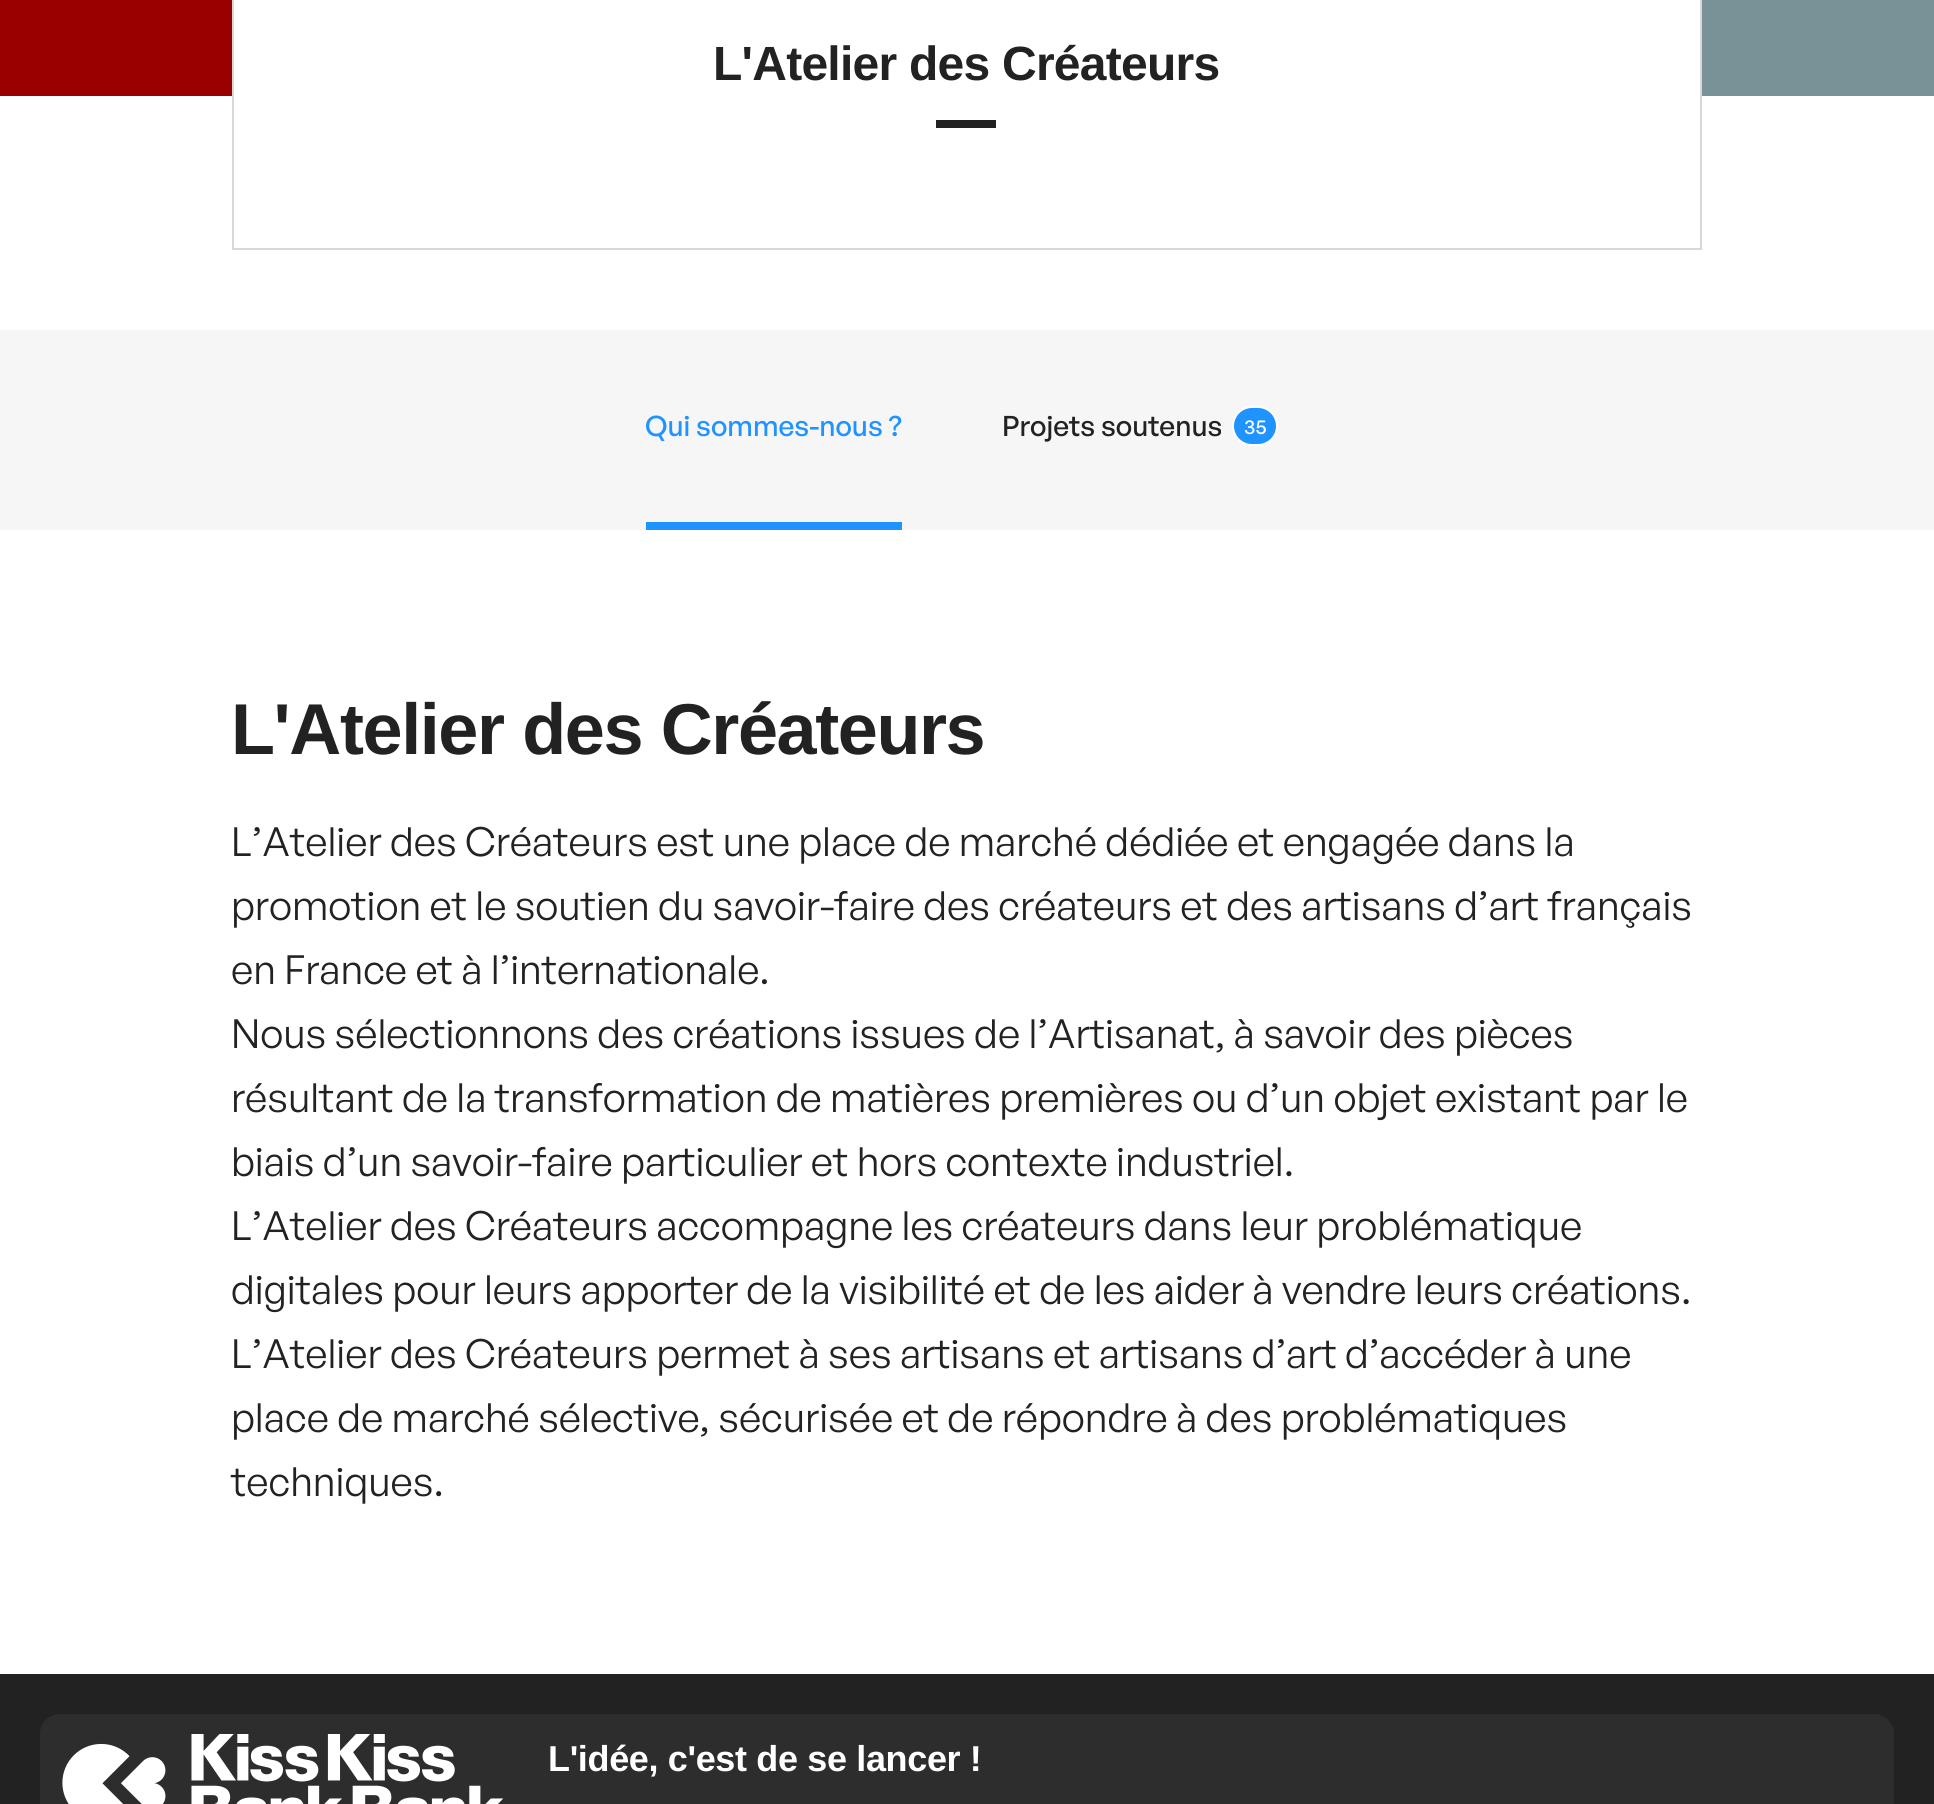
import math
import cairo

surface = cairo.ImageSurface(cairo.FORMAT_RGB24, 1934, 1804)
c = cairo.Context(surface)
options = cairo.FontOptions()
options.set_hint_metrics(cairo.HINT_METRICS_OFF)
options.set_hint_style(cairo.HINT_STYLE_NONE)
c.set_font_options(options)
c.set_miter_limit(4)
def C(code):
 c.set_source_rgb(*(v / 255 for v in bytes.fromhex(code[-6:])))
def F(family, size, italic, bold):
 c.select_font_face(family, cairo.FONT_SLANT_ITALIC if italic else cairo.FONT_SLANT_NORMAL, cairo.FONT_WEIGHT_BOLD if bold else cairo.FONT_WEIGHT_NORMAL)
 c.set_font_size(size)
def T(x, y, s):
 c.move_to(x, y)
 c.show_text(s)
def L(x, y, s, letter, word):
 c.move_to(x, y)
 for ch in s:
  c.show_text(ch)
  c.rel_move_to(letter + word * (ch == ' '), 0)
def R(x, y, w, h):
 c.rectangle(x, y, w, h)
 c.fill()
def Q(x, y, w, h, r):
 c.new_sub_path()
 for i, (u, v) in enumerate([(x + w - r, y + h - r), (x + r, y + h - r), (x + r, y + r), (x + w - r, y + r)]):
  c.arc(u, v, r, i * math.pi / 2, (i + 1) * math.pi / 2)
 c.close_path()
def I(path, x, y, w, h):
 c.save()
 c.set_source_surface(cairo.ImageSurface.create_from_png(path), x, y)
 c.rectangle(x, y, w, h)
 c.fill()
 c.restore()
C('ffffff')
c.paint()
I('1.png',0,0,1934,96)
C('ffffff')
R(234,0,1466,96)
c.rectangle(233,-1,1468,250)
C('d8d8d8')
c.stroke()
F('Liberation Sans',48,0,1)
C('222222')
L(713,80,'L\'Atelier des Créateurs',-.75,0)
R(936,120,60,8)
C('f6f6f6')
R(0,330,1934,200)
C('1f93ff')
R(646,522,256,8)
F('General Sans Medium',28,0,0)
T(645,436,'Qui sommes-nous ?')
C('222222')
T(1002,436,'Projets soutenus')
C('1f93ff')
Q(1233,407,44,38,19)
c.fill_preserve()
C('ffffff')
c.stroke()
F('General Sans Medium',20,0,0)
T(1244,434,'35')
F('Liberation Sans',72,0,1)
C('222222')
L(231,754,'L\'Atelier des Créateurs',-1.4,0)
F('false',40,0,0)
T(231,856,'L’Atelier des Créateurs est une place de marché dédiée et engagée dans la')
T(231,920,'promotion et le soutien du savoir-faire des créateurs et des artisans d’art français')
T(231,984,'en France et à l’internationale.')
T(231,1048,'Nous sélectionnons des créations issues de l’Artisanat, à savoir des pièces')
T(231,1112,'résultant de la transformation de matières premières ou d’un objet existant par le')
T(231,1176,'biais d’un savoir-faire particulier et hors contexte industriel.')
T(231,1240,'L’Atelier des Créateurs accompagne les créateurs dans leur problématique')
T(231,1304,'digitales pour leurs apporter de la visibilité et de les aider à vendre leurs créations.')
T(231,1368,'L’Atelier des Créateurs permet à ses artisans et artisans d’art d’accéder à une')
T(231,1432,'place de marché sélective, sécurisée et de répondre à des problématiques')
T(231,1496,'techniques.')
R(0,1674,1934,130)
C('2d2d2d')
Q(40,1714,1854,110,20)
c.fill()
I('2.png',62,1734,442,70)
F('Liberation Sans',36,0,1)
C('ffffff')
L(548,1771,'L\'idée, c\'est de se lancer !',-.35,0)
surface.write_to_png('o.png')
